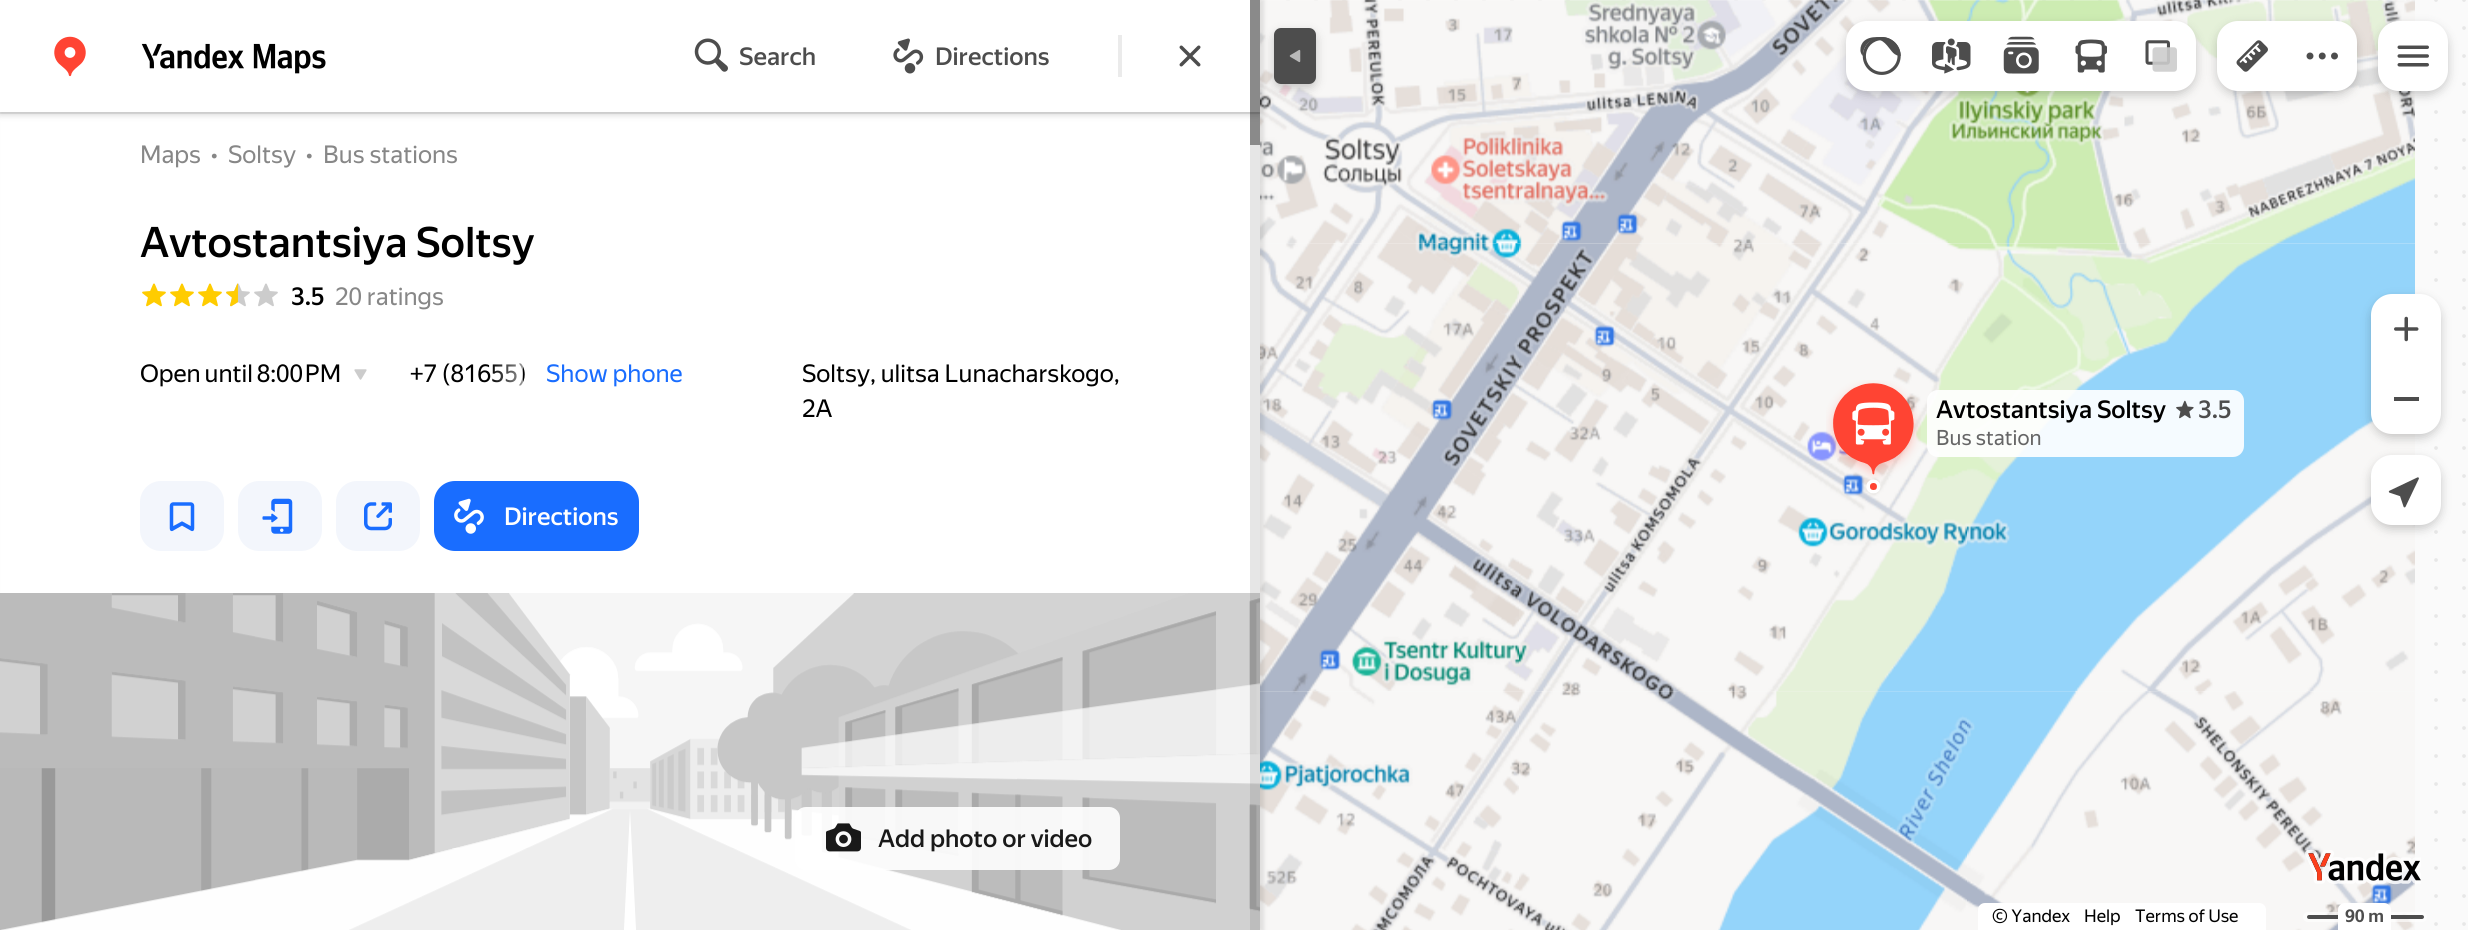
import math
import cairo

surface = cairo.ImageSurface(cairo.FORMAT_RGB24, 2468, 930)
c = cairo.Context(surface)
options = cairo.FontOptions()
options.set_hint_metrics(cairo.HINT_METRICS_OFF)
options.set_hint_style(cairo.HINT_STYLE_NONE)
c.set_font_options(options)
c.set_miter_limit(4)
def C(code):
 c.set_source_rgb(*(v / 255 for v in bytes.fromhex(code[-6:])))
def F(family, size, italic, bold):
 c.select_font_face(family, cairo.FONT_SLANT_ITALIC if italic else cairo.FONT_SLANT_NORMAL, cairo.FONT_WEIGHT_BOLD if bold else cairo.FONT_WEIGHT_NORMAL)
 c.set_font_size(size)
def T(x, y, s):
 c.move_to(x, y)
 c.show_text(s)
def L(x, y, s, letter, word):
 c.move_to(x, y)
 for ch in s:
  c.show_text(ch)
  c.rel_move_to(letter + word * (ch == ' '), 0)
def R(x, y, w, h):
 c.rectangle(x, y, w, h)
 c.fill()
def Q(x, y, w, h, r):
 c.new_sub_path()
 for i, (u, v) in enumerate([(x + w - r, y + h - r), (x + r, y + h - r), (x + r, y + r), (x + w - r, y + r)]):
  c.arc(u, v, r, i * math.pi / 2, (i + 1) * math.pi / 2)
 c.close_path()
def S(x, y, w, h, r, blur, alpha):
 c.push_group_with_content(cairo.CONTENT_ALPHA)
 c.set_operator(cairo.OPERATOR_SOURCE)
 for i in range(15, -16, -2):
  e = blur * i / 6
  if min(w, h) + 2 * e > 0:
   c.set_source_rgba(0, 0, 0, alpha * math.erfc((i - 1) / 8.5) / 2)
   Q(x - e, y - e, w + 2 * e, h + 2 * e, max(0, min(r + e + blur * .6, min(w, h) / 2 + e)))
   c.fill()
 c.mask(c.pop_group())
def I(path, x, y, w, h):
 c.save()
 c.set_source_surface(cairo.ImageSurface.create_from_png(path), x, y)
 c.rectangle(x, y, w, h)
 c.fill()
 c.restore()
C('ffffff')
c.paint()
I('1.png',1260,0,1208,930)
I('29.png',1260,0,259,244)
I('32.png',1260,243,259,449)
I('35.png',1260,691,259,239)
C('000000')
S(4,0,1260,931,0,2,.1)
C('ffffff')
R(1,114,1259,479)
C('ebebeb')
R(0,112,1260,2)
c.save()
c.rectangle(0,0,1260,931)
c.clip()
C('000000')
S(0,107,1260,7,0,3.5,.2)
c.restore()
C('000000')
S(1274,32,42,56,7,5,.2)
C('ffffff')
R(0,0,1260,112)
I('2.png',54,36,32,41)
I('3.png',141,43,185,31)
I('4.png',694,38,34,34)
F('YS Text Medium',24.5,0,0)
C('4d4d4d')
T(739,65,'Search')
I('5.png',893,38,31,36)
T(935,65,'Directions')
C('ebebeb')
R(1118,35,4,42)
I('6.png',1179,45,22,22)
F('YS Text',24.5,0,0)
C('878787')
T(140,163,'Maps')
T(211,163,'•')
T(228,163,'Soltsy')
T(306,163,'•')
T(323,163,'Bus stations')
F('YS Text Medium',42,0,0)
C('000000')
T(140,257,'Avtostantsiya Soltsy')
I('7.png',142,283,24,24)
I('7.png',170,283,24,24)
I('7.png',198,283,24,24)
I('8.png',226,283,24,24)
I('9.png',254,283,24,24)
F('YS Text Medium',24.5,0,0)
T(291,305,'3.5')
F('YS Text',24.5,0,0)
C('878787')
T(335,305,'20 ratings')
C('000000')
L(140,382,'Open until 8:00 PM',0,-1)
I('10.png',354,369,13,11)
T(410,382,'+7 (81655)')
gradient = cairo.LinearGradient(490,373,546,373)
gradient.add_color_stop_rgba(0,1,1,1,0)
gradient.add_color_stop_rgba(1,1,1,1,1)
c.set_source(gradient)
R(491,363,32,23)
C('196dff')
T(546,382,'Show phone')
C('000000')
T(802,382,'Soltsy, ulitsa Lunacharskogo,')
T(802,417,'2А')
C('f3f6fc')
Q(140,481,84,70,21)
c.fill()
I('11.png',169,502,26,30)
Q(238,481,84,70,21)
c.fill()
I('12.png',262,498,31,36)
Q(336,481,84,70,21)
c.fill()
I('13.png',364,502,28,29)
C('196dff')
Q(434,481,205,70,21)
c.fill()
I('14.png',454,498,30,36)
F('YS Text Medium',24.5,0,0)
C('ffffff')
T(504,525,'Directions')
I('15.png',0,593,1260,337)
c.set_source_rgba(1,1,1,0.9)
Q(795,807,325,63,11)
c.fill()
I('16.png',826,823,35,29)
C('191919')
T(878,847,'Add photo or video')
c.set_source_rgba(0,0,0,0.1)
R(1250,0,10,930)
c.set_source_rgba(0,0,0,0.4)
R(1250,0,10,145)
C('4d4d4d')
Q(1274,28,42,56,7)
c.fill()
I('17.png',1289,49,12,14)
I('30.png',1519,0,448,244)
I('31.png',1967,0,448,244)
C('000000')
S(1846,25,350,70,21,5,.2)
C('ffffff')
c.new_path()
c.move_to(1867,21)
c.line_to(1916,21)
c.line_to(1916,91)
c.line_to(1867,91)
c.curve_to(1855.5,91,1846,81.5,1846,70)
c.line_to(1846,42)
c.curve_to(1846,30.5,1855.5,21,1867,21)
c.close_path()
c.fill()
I('18.png',1860,37,41,38)
R(1916,21,210,70)
I('19.png',1932,38,39,36)
c.new_path()
c.move_to(2126,21)
c.line_to(2175,21)
c.curve_to(2186.5,21,2196,30.5,2196,42)
c.line_to(2196,70)
c.curve_to(2196,81.5,2186.5,91,2175,91)
c.line_to(2126,91)
c.close_path()
c.fill()
I('20.png',2145,40,32,32)
I('21.png',2003,36,36,38)
I('22.png',2075,39,32,34)
C('000000')
S(2217,25,140,70,21,5,.2)
C('ffffff')
c.new_path()
c.move_to(2238,21)
c.line_to(2287,21)
c.line_to(2287,91)
c.line_to(2238,91)
c.curve_to(2226.5,91,2217,81.5,2217,70)
c.line_to(2217,42)
c.curve_to(2217,30.5,2226.5,21,2238,21)
c.close_path()
c.fill()
I('23.png',2236,40,32,32)
c.new_path()
c.move_to(2287,21)
c.line_to(2336,21)
c.curve_to(2347.5,21,2357,30.5,2357,42)
c.line_to(2357,70)
c.curve_to(2357,81.5,2347.5,91,2336,91)
c.line_to(2287,91)
c.close_path()
c.fill()
I('24.png',2306,52,32,8)
C('000000')
S(2378,25,70,70,21,5,.2)
C('ffffff')
Q(2378,21,70,70,21)
c.fill()
I('25.png',2397,45,32,22)
I('34.png',1967,243,448,449)
C('000000')
S(2371,298,70,140,21,5,.2)
C('ffffff')
c.new_path()
c.move_to(2392,294)
c.line_to(2420,294)
c.curve_to(2431.5,294,2441,303.5,2441,315)
c.line_to(2441,364)
c.line_to(2371,364)
c.line_to(2371,315)
c.curve_to(2371,303.5,2380.5,294,2392,294)
c.close_path()
c.fill()
I('26.png',2394,316,25,26)
c.new_path()
c.move_to(2371,364)
c.line_to(2441,364)
c.line_to(2441,413)
c.curve_to(2441,424.5,2431.5,434,2420,434)
c.line_to(2392,434)
c.curve_to(2380.5,434,2371,424.5,2371,413)
c.close_path()
c.fill()
C('4d4d4d')
R(2394,397,25,4)
C('000000')
S(2371,459,70,70,21,5,.2)
C('ffffff')
Q(2371,455,70,70,21)
c.fill()
I('27.png',2388,477,31,31)
I('37.png',1967,691,448,239)
I('28.png',2305,850,116,35)
c.new_path()
c.move_to(1985,903)
c.line_to(2259,903)
c.curve_to(2263,903,2266,906,2266,910)
c.line_to(2266,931)
c.line_to(1978,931)
c.line_to(1978,910)
c.curve_to(1978,906,1981,903,1985,903)
c.close_path()
c.fill()
F('YS Text',17.5,0,0)
C('000000')
T(1992,922,'© Yandex')
T(2084,922,'Help')
T(2135,922,'Terms of Use')
c.set_source_rgba(1,1,1,0.6)
Q(2303,912,124,10,5)
c.fill()
C('4d4d4d')
Q(2307,915,117,4,2)
c.fill()
C('ffffff')
c.new_path()
c.move_to(2345,903)
c.line_to(2384,903)
c.curve_to(2388,903,2391,906,2391,910)
c.line_to(2391,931)
c.line_to(2338,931)
c.line_to(2338,910)
c.curve_to(2338,906,2341,903,2345,903)
c.close_path()
c.fill()
F('YS Text',17.5,0,1)
C('4d4d4d')
T(2345,922,'90 m')
I('33.png',1519,243,448,449)
I('36.png',1519,691,448,239)
I('38.png',1826,380,95,114)
I('39.png',1852,402,43,43)
c.set_source_rgba(1,1,1,0.9)
Q(1927,390,317,67,11)
c.fill()
F('YS Text Medium',24.5,0,0)
C('000000')
T(1936,418,'Avtostantsiya Soltsy')
I('40.png',2176,400,18,19)
C('4d4d4d')
T(2198,418,'3.5')
F('YS Text',21,0,0)
C('666666')
T(1936,445,'Bus station')
surface.write_to_png('o.png')
